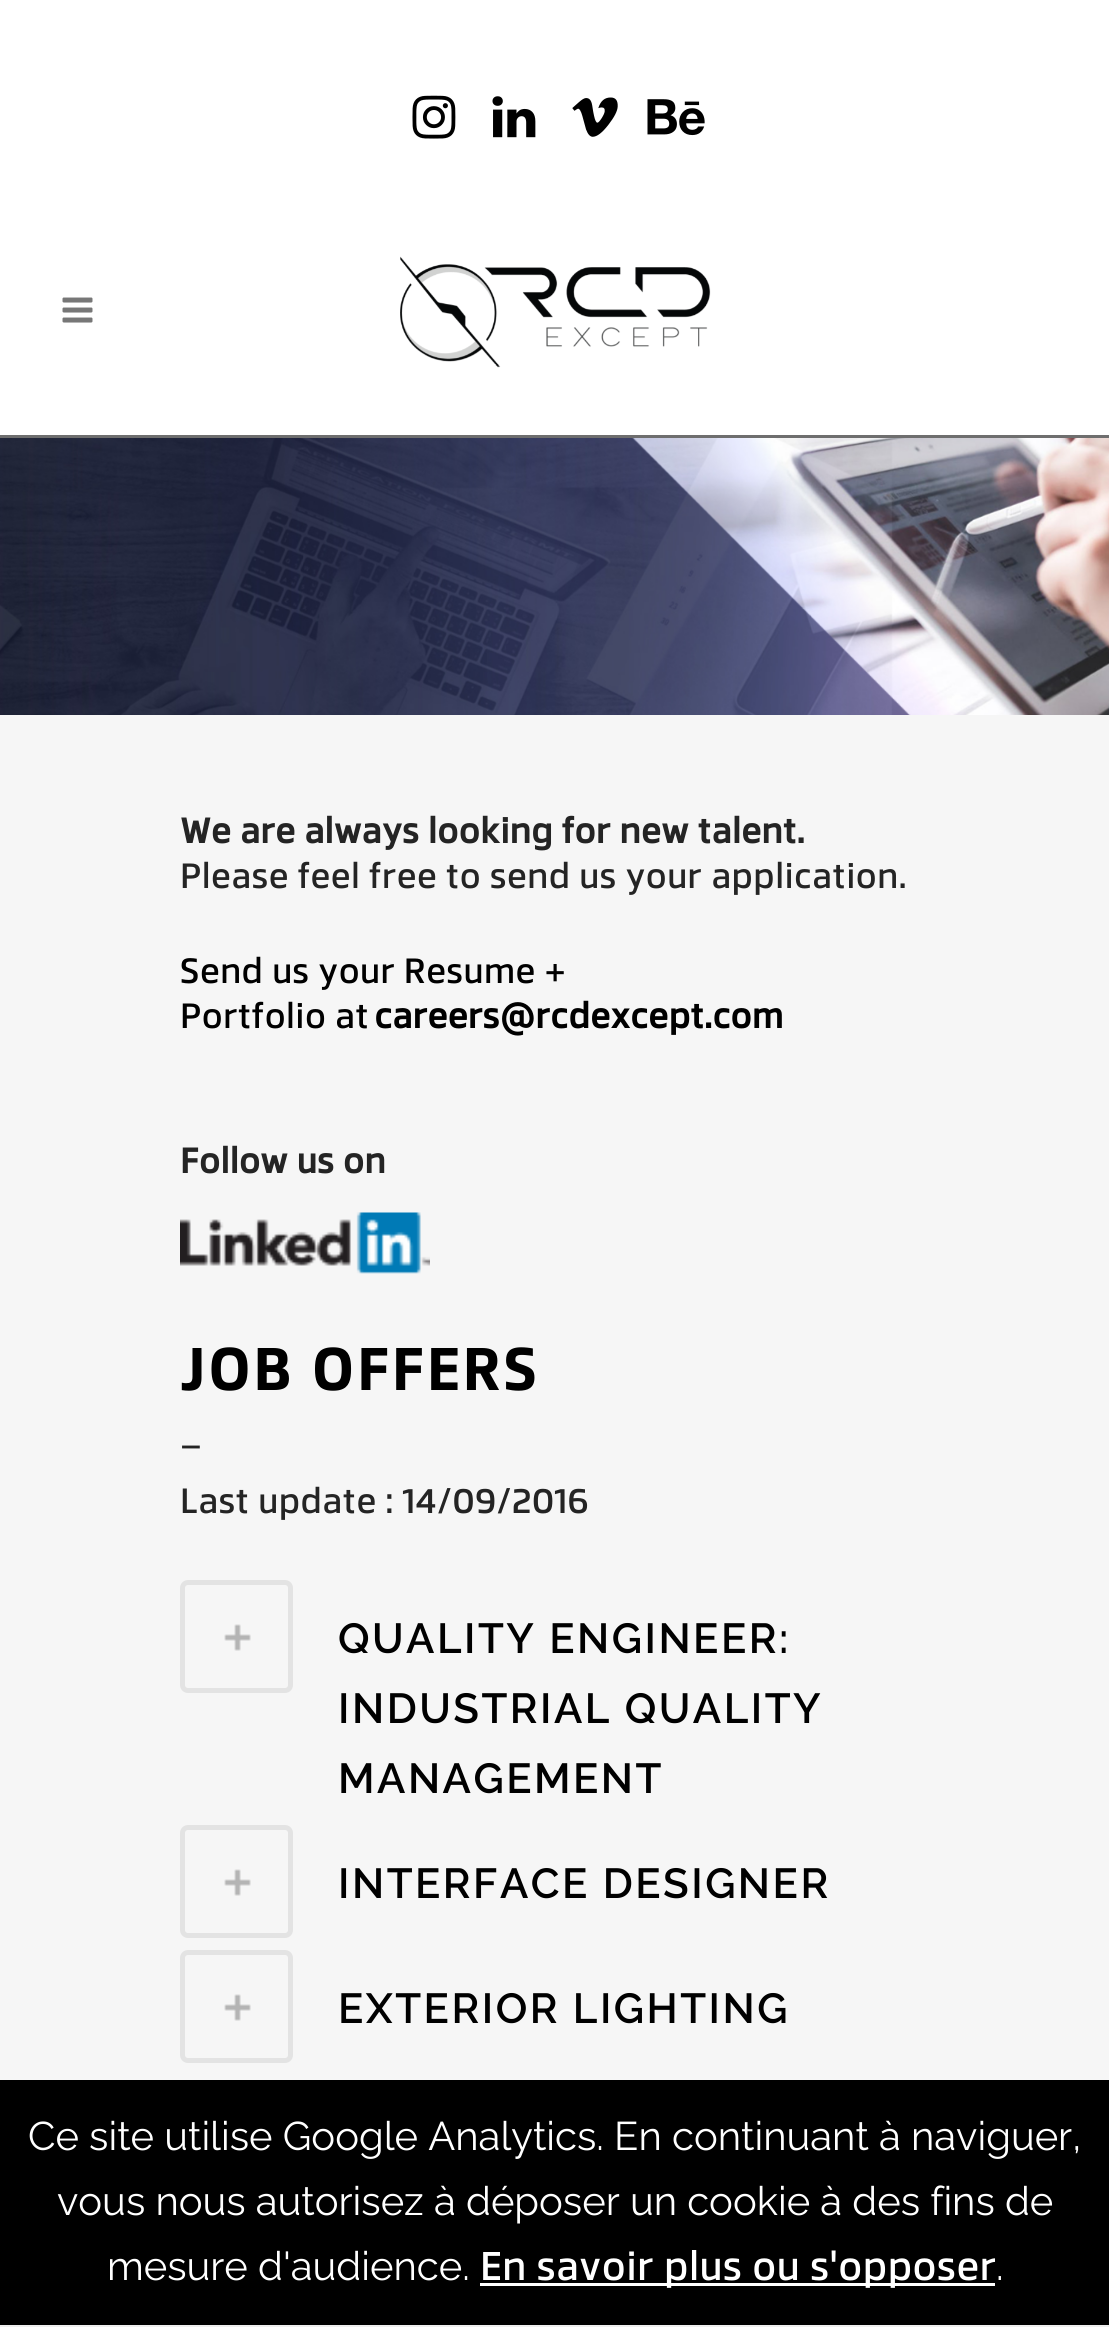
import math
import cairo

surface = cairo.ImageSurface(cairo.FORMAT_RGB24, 1109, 2327)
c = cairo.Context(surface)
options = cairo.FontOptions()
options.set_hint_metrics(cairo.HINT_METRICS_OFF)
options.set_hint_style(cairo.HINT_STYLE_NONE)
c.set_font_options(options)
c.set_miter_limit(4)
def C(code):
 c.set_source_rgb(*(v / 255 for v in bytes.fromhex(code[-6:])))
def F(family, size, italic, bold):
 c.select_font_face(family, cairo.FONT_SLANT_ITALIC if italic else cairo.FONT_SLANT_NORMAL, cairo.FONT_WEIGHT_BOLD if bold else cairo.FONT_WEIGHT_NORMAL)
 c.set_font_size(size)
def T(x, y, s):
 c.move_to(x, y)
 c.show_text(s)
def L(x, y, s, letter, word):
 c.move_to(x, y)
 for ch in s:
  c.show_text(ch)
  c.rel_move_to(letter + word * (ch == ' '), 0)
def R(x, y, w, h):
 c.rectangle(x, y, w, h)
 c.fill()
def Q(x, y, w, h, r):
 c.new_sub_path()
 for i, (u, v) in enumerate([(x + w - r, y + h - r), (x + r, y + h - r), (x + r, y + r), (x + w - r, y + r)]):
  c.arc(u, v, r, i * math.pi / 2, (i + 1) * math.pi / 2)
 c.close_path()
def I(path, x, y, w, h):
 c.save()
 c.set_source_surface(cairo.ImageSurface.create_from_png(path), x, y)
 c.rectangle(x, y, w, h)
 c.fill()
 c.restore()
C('f6f6f6')
c.paint()
C('ffffff')
R(0,0,1109,435)
C('6e6e6e')
R(0,435,1109,3)
I('1.png',62,297,31,26)
I('2.png',400,256,311,112)
I('3.png',412,95,44,44)
I('4.png',492,96,44,42)
I('5.png',572,97,46,40)
I('6.png',647,99,58,37)
I('7.png',0,438,1109,277)
F('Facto',35,0,1)
C('242424')
T(180,843,'We are always looking for new talent.')
F('Facto Medium',35,0,0)
T(180,888,'Please feel free to send us your application.')
C('000000')
T(180,983,'Send us your Resume +')
T(180,1028,'Portfolio at')
F('Facto',35,0,1)
T(374,1028,'careers@rcdexcept.com')
C('242424')
T(180,1173,'Follow us on')
I('8.png',180,1212,250,62)
F('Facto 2',60,0,1)
C('000000')
L(180,1390,'JOB OFFERS',2.5,0)
F('Facto Medium',35,0,0)
C('242424')
T(180,1443,'_')
T(180,1513,'Last update : 14/09/2016')
Q(182.5,1582.5,108,108,5.5)
C('e3e3e3')
c.set_line_width(5)
c.stroke()
I('9.png',224,1624,27,27)
F('Raleway SemiBold',42,0,0)
C('000000')
L(338,1653,'QUALITY ENGINEER:',2.5,0)
L(338,1723,'INDUSTRIAL QUALITY',2.5,0)
L(338,1793,'MANAGEMENT',2.5,0)
Q(182.5,1827.5,108,108,5.5)
C('e3e3e3')
c.stroke()
I('9.png',224,1869,27,27)
C('000000')
L(338,1898,'INTERFACE DESIGNER',2.5,0)
Q(182.5,1952.5,108,108,5.5)
C('e3e3e3')
c.stroke()
I('9.png',224,1994,27,27)
C('000000')
L(338,2023,'EXTERIOR LIGHTING',2.5,0)
R(0,2080,1109,245)
C('eeeeee')
R(0,2325,1109,2)
F('Raleway',40,0,0)
C('ffffff')
T(28,2150,'Ce site utilise Google Analytics. En continuant à naviguer,')
T(57,2215,'vous nous autorisez à déposer un cookie à des fins de')
T(107,2280,'mesure d\'audience.')
R(480,2283,515,3)
F('Facto Medium',40,0,0)
T(480,2280,'En savoir plus ou s\'opposer')
F('Raleway',40,0,0)
T(996,2280,'.')
surface.write_to_png('o.png')
